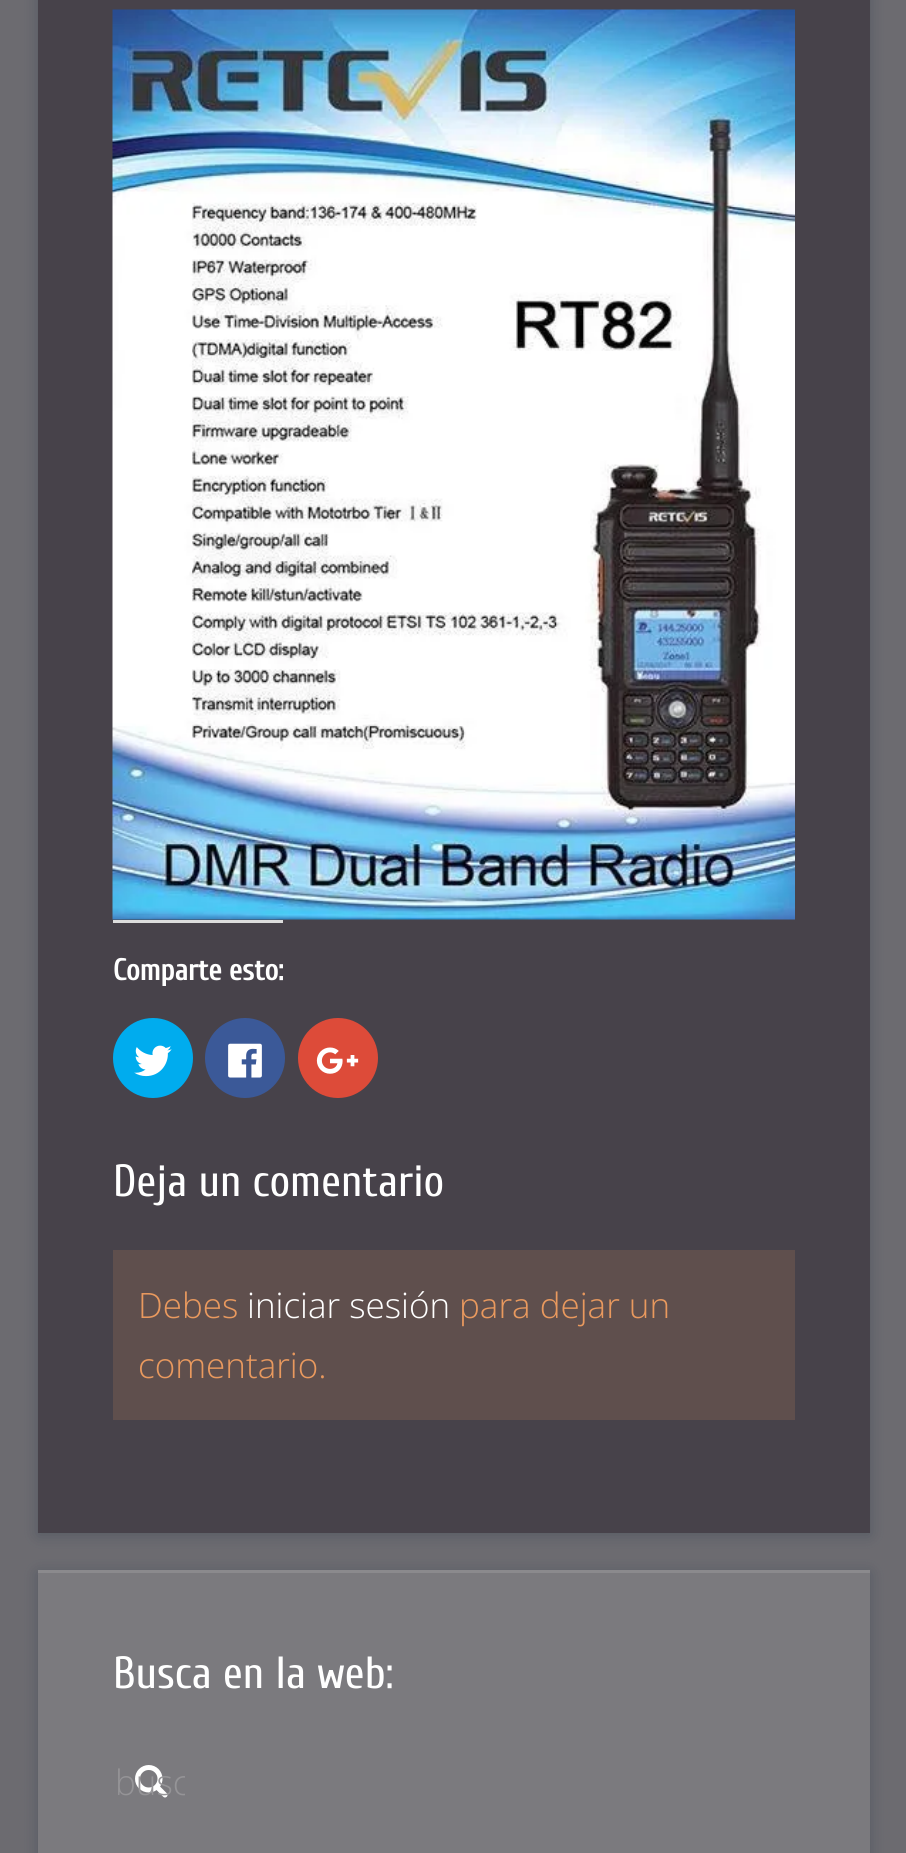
import math
import cairo

surface = cairo.ImageSurface(cairo.FORMAT_RGB24, 906, 1853)
c = cairo.Context(surface)
options = cairo.FontOptions()
options.set_hint_metrics(cairo.HINT_METRICS_OFF)
options.set_hint_style(cairo.HINT_STYLE_NONE)
c.set_font_options(options)
c.set_miter_limit(4)
def C(code):
 c.set_source_rgb(*(v / 255 for v in bytes.fromhex(code[-6:])))
def F(family, size, italic, bold):
 c.select_font_face(family, cairo.FONT_SLANT_ITALIC if italic else cairo.FONT_SLANT_NORMAL, cairo.FONT_WEIGHT_BOLD if bold else cairo.FONT_WEIGHT_NORMAL)
 c.set_font_size(size)
def T(x, y, s):
 c.move_to(x, y)
 c.show_text(s)
def R(x, y, w, h):
 c.rectangle(x, y, w, h)
 c.fill()
def Q(x, y, w, h, r):
 c.new_sub_path()
 for i, (u, v) in enumerate([(x + w - r, y + h - r), (x + r, y + h - r), (x + r, y + r), (x + w - r, y + r)]):
  c.arc(u, v, r, i * math.pi / 2, (i + 1) * math.pi / 2)
 c.close_path()
def S(x, y, w, h, r, blur, alpha):
 c.push_group_with_content(cairo.CONTENT_ALPHA)
 c.set_operator(cairo.OPERATOR_SOURCE)
 for i in range(15, -16, -2):
  e = blur * i / 6
  if min(w, h) + 2 * e > 0:
   c.set_source_rgba(0, 0, 0, alpha * math.erfc((i - 1) / 8.5) / 2)
   Q(x - e, y - e, w + 2 * e, h + 2 * e, max(0, min(r + e + blur * .6, min(w, h) / 2 + e)))
   c.fill()
 c.mask(c.pop_group())
def I(path, x, y, w, h):
 c.save()
 c.set_source_surface(cairo.ImageSurface.create_from_png(path), x, y)
 c.rectangle(x, y, w, h)
 c.fill()
 c.restore()
C('6c6b70')
c.paint()
C('1e3246')
S(38,-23,832,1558,0,7.5,.3)
C('47424a')
R(38,0,832,1533)
I('1.png',112,9,683,911)
C('dddddd')
R(113,920,170,3)
F('Cuprum',30,0,1)
C('ffffff')
T(113,980,'Comparte esto:')
C('00acee')
c.new_path()
c.arc(153,1058,40,0,2 * math.pi)
c.fill()
I('2.png',134,1045,38,32)
C('3b5998')
c.arc(245,1058,40,0,2 * math.pi)
c.fill()
I('3.png',228,1043,34,35)
C('dd4b39')
c.arc(338,1058,40,0,2 * math.pi)
c.fill()
I('4.png',316,1047,43,27)
F('Cuprum',45,0,0)
C('ffffff')
T(113,1196,'Deja un comentario')
C('5f4f4d')
R(113,1250,682,170)
F('Open Sans Light',35,0,0)
C('e9995e')
T(138,1318,'Debes')
C('ffffff')
T(247,1318,'iniciar sesión')
C('e9995e')
T(459,1318,'para dejar un')
T(138,1378,'comentario.')
C('1e3246')
S(38,1573,832,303,0,7.5,.3)
C('7b7a7e')
R(38,1573,832,280)
C('8b8a8d')
R(38,1570,832,3)
F('Cuprum',45,0,0)
C('ffffff')
T(113,1688,'Busca en la web:')
I('5.png',135,1765,33,33)
c.save()
c.rectangle(115,1758,70,47)
c.clip()
F('Open Sans Light',35,0,0)
C('959497')
T(115,1795,'busc')
c.restore()
surface.write_to_png('o.png')
